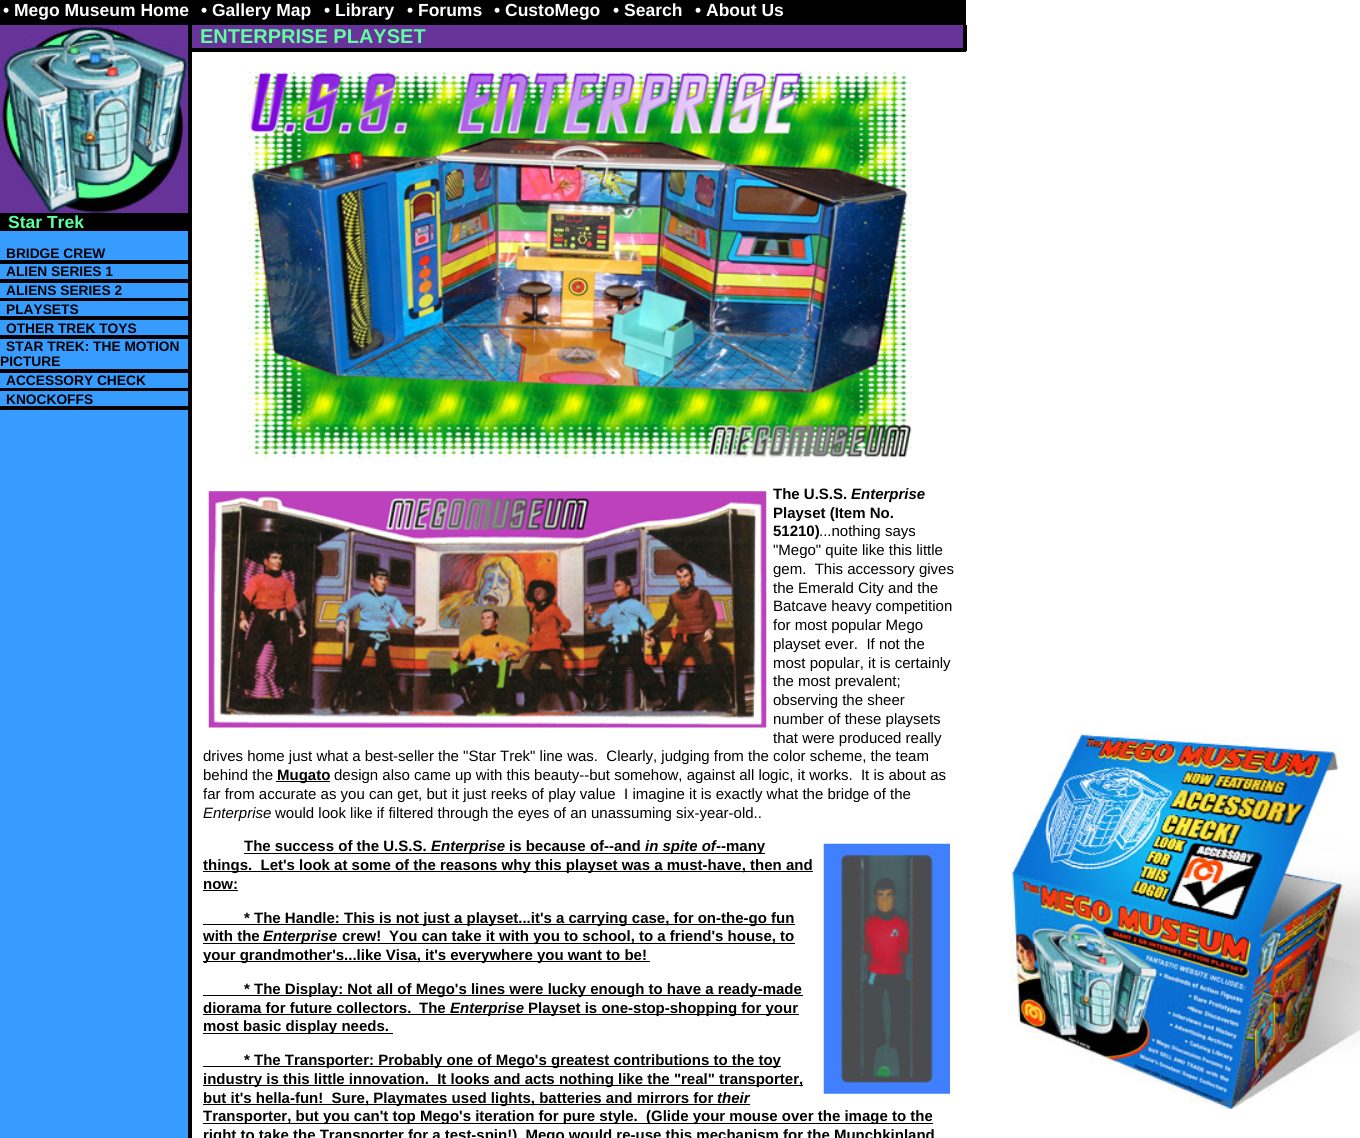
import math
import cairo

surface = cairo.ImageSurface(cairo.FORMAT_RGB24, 1360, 1138)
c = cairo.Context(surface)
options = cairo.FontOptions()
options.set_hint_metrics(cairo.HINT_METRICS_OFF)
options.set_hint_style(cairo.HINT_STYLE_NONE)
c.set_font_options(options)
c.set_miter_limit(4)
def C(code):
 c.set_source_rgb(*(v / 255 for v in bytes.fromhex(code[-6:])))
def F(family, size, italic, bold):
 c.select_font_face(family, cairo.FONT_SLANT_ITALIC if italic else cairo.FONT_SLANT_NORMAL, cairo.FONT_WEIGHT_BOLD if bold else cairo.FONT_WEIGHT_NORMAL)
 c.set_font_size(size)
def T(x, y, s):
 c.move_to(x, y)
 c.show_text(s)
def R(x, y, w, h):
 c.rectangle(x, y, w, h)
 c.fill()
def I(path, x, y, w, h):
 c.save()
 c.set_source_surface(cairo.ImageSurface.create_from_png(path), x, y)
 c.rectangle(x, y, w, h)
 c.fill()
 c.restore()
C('ffffff')
c.paint()
I('1.png',1010,733,350,376)
C('000000')
R(0,0,966,25)
F('Liberation Sans',17.5,0,1)
C('ffffff')
T(3,16,'• Mego Museum Home')
T(201,16,'• Gallery Map')
T(324,16,'• Library')
T(407,16,'• Forums')
T(494,16,'• CustoMego')
T(613,16,'• Search')
T(695,16,'• About Us')
C('369cff')
R(0,231,188,907)
C('000000')
R(963,25,4,26)
R(188,48,778,4)
R(188,25,4,1113)
I('2.png',0,25,188,188)
R(0,213,188,18)
C('5fff9f')
T(8,228,'Star Trek')
C('000000')
R(0,260,188,4)
F('Liberation Sans',13.75,0,1)
T(6,258,'BRIDGE CREW')
R(0,279,188,4)
T(6,276,'ALIEN SERIES 1')
R(0,298,188,3)
T(6,295,'ALIENS SERIES 2')
R(0,316,188,4)
T(6,314,'PLAYSETS')
R(0,335,188,4)
T(6,333,'OTHER TREK TOYS')
R(0,369,188,4)
T(6,351,'STAR TREK: THE MOTION')
T(0,366,'PICTURE')
R(0,388,188,3)
T(6,385,'ACCESSORY CHECK')
R(0,406,188,4)
T(6,404,'KNOCKOFFS')
C('673398')
R(192,25,771,23)
F('Liberation Sans',20,0,1)
C('5fff9f')
T(200,43,'ENTERPRISE PLAYSET')
I('3.png',248,72,664,386)
I('4.png',208,491,559,237)
F('Liberation Sans',15,0,1)
C('000000')
T(773,499,'The U.S.S.')
F('Liberation Sans',15,1,1)
T(851,499,'Enterprise')
F('Liberation Sans',15,0,1)
T(773,518,'Playset (Item No.')
T(773,536,'51210)')
F('Liberation Sans',15,0,0)
T(819,536,'...nothing says')
T(773,555,'"Mego" quite like this little')
T(773,574,'gem.  This accessory gives')
T(773,593,'the Emerald City and the')
T(773,611,'Batcave heavy competition')
T(773,630,'for most popular Mego')
T(773,649,'playset ever.  If not the')
T(773,668,'most popular, it is certainly')
T(773,686,'the most prevalent;')
T(773,705,'observing the sheer')
T(773,724,'number of these playsets')
T(773,743,'that were produced really')
T(203,761,'drives home just what a best-seller the "Star Trek" line was.  Clearly, judging from the color scheme, the team')
T(203,780,'behind the')
R(276,781,54,1)
F('Liberation Sans',15,0,1)
T(277,780,'Mugato')
F('Liberation Sans',15,0,0)
T(334,780,'design also came up with this beauty--but somehow, against all logic, it works.  It is about as')
T(203,799,'far from accurate as you can get, but it just reeks of play value  I imagine it is exactly what the bridge of the')
F('Liberation Sans',15,1,0)
T(203,818,'Enterprise')
F('Liberation Sans',15,0,0)
T(275,818,'would look like if filtered through the eyes of an unassuming six-year-old..')
F('Liberation Sans',15,0,1)
T(244,851,'The success of the U.S.S.')
R(244,853,472,1)
F('Liberation Sans',15,1,1)
T(431,851,'Enterprise')
F('Liberation Sans',15,0,1)
T(509,851,'is because of--and')
F('Liberation Sans',15,1,1)
T(645,851,'in spite of')
R(716,853,49,1)
F('Liberation Sans',15,0,1)
T(716,851,'--many')
I('5.png',823,843,127,251)
R(203,871,610,1)
T(203,870,'things.  Let\'s look at some of the reasons why this playset was a must-have, then and')
T(203,889,'now:')
R(203,890,35,1)
R(203,924,592,1)
T(244,923,'* The Handle: This is not just a playset...it\'s a carrying case, for on-the-go fun')
T(203,941,'with the')
R(203,943,592,1)
F('Liberation Sans',15,1,1)
T(263,941,'Enterprise')
F('Liberation Sans',15,0,1)
T(342,941,'crew!')
T(389,941,'You can take it with you to school, to a friend\'s house, to')
R(203,961,447,1)
T(203,960,'your grandmother\'s...like Visa, it\'s everywhere you want to be!')
R(203,995,600,1)
T(244,994,'* The Display: Not all of Mego\'s lines were lucky enough to have a ready-made')
T(203,1013,'diorama for future collectors.')
R(203,1014,596,1)
T(419,1013,'The')
F('Liberation Sans',15,1,1)
T(450,1013,'Enterprise')
F('Liberation Sans',15,0,1)
T(528,1013,'Playset is one-stop-shopping for your')
R(203,1033,190,1)
T(203,1031,'most basic display needs.')
R(203,1066,578,1)
T(244,1065,'* The Transporter: Probably one of Mego\'s greatest contributions to the toy')
R(203,1085,600,1)
T(203,1084,'industry is this little innovation.  It looks and acts nothing like the "real" transporter,')
R(203,1104,547,1)
T(203,1103,'but it\'s hella-fun!  Sure, Playmates used lights, batteries and mirrors for')
F('Liberation Sans',15,1,1)
T(717,1103,'their')
R(203,1123,730,1)
F('Liberation Sans',15,0,1)
T(203,1121,'Transporter, but you can\'t top Mego\'s iteration for pure style.  (Glide your mouse over the image to the')
T(203,1140,'right to take the Transporter for a test-spin!)  Mego would re-use this mechanism for the Munchkinland')
surface.write_to_png('o.png')
